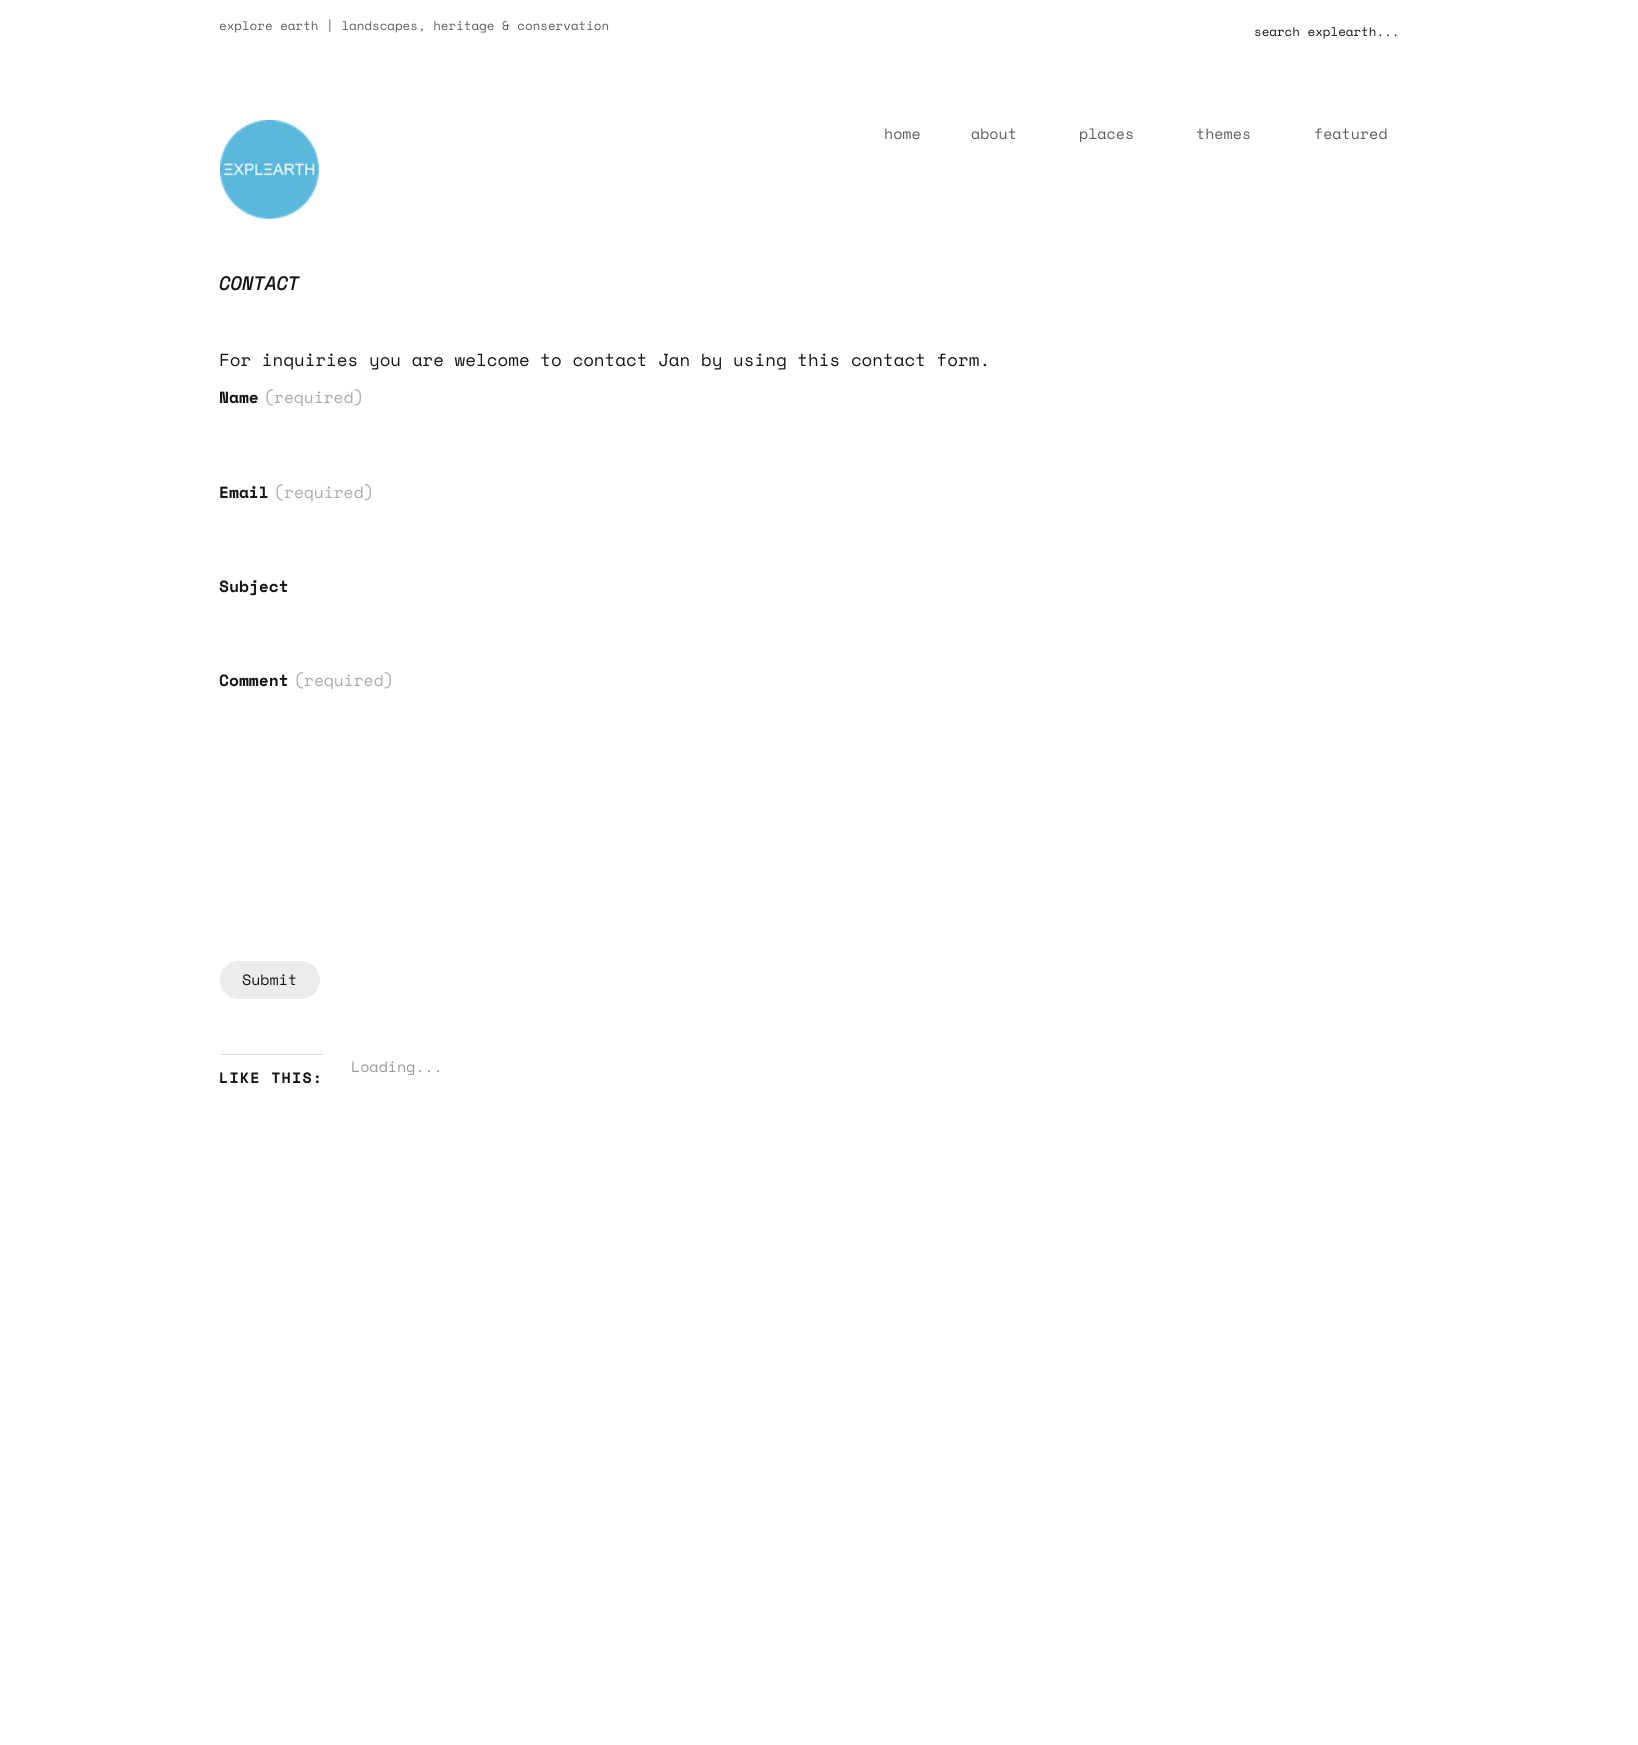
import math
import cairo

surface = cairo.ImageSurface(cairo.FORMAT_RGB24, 1638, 1745)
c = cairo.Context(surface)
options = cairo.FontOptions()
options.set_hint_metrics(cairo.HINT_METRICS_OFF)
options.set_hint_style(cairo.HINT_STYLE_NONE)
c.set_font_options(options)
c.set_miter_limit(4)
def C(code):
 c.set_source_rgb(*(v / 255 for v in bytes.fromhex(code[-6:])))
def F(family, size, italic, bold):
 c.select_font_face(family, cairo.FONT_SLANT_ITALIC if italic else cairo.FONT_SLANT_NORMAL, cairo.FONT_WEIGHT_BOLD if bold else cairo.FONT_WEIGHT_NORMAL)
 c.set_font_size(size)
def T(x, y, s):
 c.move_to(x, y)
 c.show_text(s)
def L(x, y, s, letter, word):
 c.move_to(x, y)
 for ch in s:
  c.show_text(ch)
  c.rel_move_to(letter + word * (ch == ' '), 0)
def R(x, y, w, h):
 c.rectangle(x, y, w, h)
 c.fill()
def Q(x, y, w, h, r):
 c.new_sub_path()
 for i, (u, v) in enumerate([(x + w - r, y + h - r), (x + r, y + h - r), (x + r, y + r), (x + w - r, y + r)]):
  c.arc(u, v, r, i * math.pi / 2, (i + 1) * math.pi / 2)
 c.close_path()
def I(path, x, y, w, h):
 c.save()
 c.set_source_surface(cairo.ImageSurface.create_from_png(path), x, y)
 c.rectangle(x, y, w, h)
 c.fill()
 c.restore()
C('ffffff')
c.paint()
F('Space Mono',12.5,0,0)
C('5e5e5e')
T(219,30,'explore earth | landscapes, heritage & conservation')
C('161616')
T(1254,36,'search explearth...')
I('1.png',220,120,99,99)
F('Space Mono',15,0,0)
C('5e5e5e')
T(884,139,'home')
T(971,139,'about')
T(1079,139,'places')
T(1196,139,'themes')
T(1314,139,'featured')
F('Space Mono',18.75,1,1)
C('161616')
T(219,290,'CONTACT')
F('Space Mono',17.5,0,0)
T(219,366,'For inquiries you are welcome to contact Jan by using this contact form.')
F('Space Mono',16.25,0,1)
T(219,403,'Name')
F('Space Mono',16.25,0,0)
C('aaaaaa')
T(264,403,'(required)')
F('Space Mono',16.25,0,1)
C('161616')
T(219,498,'Email')
F('Space Mono',16.25,0,0)
C('aaaaaa')
T(274,498,'(required)')
F('Space Mono',16.25,0,1)
C('161616')
T(219,592,'Subject')
T(219,686,'Comment')
F('Space Mono',16.25,0,0)
C('aaaaaa')
T(294,686,'(required)')
C('eaecee')
Q(220,961,100,38,19)
c.fill()
F('Space Mono',15,0,0)
C('161616')
T(242,985,'Submit')
C('999999')
T(351,1072,'Loading...')
C('dddddd')
R(220,1054,104,1)
F('Space Mono',15,0,1)
C('161616')
L(219,1083,'LIKE THIS:',1.25,0)
surface.write_to_png('o.png')
